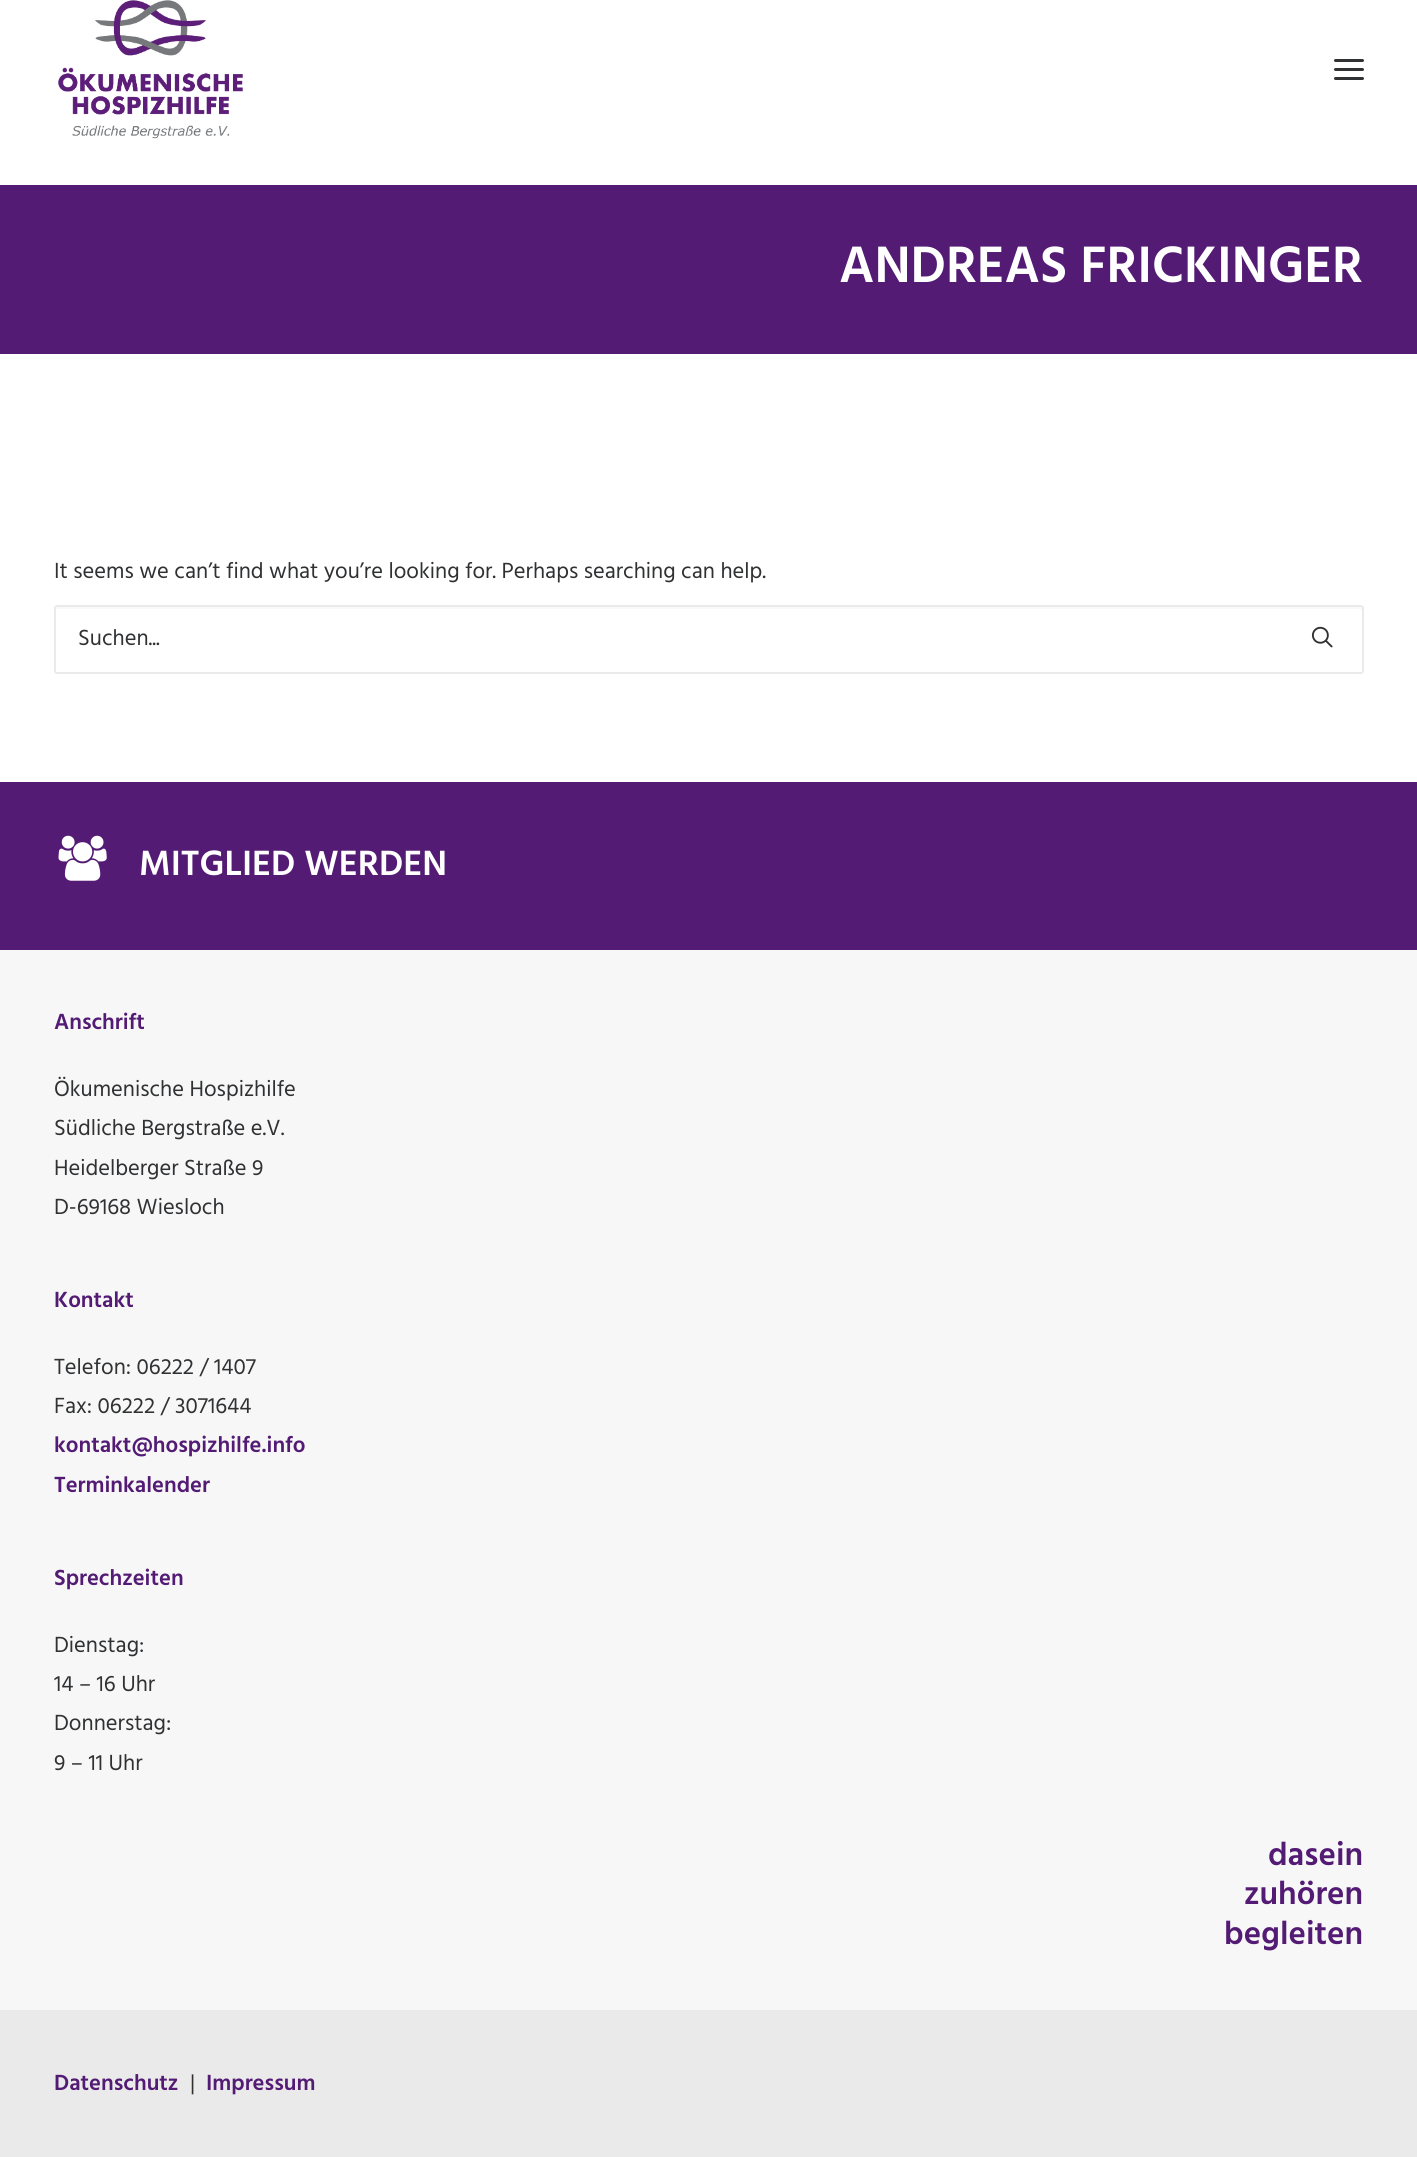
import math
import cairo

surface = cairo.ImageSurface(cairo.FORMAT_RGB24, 1417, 2157)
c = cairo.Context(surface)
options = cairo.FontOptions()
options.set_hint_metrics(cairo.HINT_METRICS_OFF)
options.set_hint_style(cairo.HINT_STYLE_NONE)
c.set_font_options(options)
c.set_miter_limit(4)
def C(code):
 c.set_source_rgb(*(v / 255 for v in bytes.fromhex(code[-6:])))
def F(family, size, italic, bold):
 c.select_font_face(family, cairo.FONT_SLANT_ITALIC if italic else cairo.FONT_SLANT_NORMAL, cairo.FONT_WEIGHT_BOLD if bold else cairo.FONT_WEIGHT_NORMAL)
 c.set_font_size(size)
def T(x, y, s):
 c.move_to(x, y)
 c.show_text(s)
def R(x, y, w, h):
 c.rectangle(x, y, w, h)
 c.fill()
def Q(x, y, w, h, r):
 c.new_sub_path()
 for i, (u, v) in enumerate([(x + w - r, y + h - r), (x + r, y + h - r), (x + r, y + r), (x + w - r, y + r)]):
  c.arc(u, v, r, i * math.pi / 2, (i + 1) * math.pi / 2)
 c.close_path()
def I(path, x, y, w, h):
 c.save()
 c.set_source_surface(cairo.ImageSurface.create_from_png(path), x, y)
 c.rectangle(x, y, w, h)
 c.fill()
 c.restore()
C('f7f7f7')
c.paint()
C('ffffff')
R(0,0,1417,185)
I('1.png',58,0,185,139)
C('303133')
Q(1334,68,30,3,1.5)
c.fill()
Q(1334,59,30,3,1.5)
c.fill()
Q(1334,77,30,3,1.5)
c.fill()
C('531b74')
R(0,185,1417,169)
F('Hind SemiBold',52.5,0,0)
C('ffffff')
T(839,282,'ANDREAS FRICKINGER')
R(0,354,1417,428)
F('Hind',22.5,0,0)
C('303133')
T(54,578,'It seems we can’t find what you’re looking for. Perhaps searching can help.')
C('f9f9f9')
c.new_path()
c.move_to(57,609)
c.line_to(1360,609)
c.line_to(1362,610)
c.line_to(1362,607)
c.line_to(1360,606)
c.line_to(58,606)
c.line_to(56,607)
c.line_to(56,610)
c.close_path()
c.fill()
Q(55,606,1308,67,2)
C('eaeaea')
c.stroke()
C('303133')
T(78,645,'Suchen...')
I('2.png',1311,626,22,22)
C('531b74')
R(0,782,1417,168)
I('3.png',58,835,49,46)
F('Hind SemiBold',36,0,0)
C('ffffff')
T(139,875,'MITGLIED WERDEN')
F('Hind SemiBold',22.5,0,0)
C('531b74')
T(54,1029,'Anschrift')
F('Hind',22.5,0,0)
C('303133')
T(54,1096,'Ökumenische Hospizhilfe')
T(54,1135,'Südliche Bergstraße e.V.')
T(54,1175,'Heidelberger Straße 9')
T(54,1214,'D-69168 Wiesloch')
F('Hind SemiBold',22.5,0,0)
C('531b74')
T(54,1307,'Kontakt')
F('Hind',22.5,0,0)
C('303133')
T(54,1374,'Telefon: 06222 / 1407')
T(54,1413,'Fax: 06222 / 3071644')
F('Hind SemiBold',22.5,0,0)
C('531b74')
T(54,1452,'kontakt@hospizhilfe.info')
T(54,1492,'Terminkalender')
T(54,1585,'Sprechzeiten')
F('Hind',22.5,0,0)
C('303133')
T(54,1652,'Dienstag:')
T(54,1691,'14 – 16 Uhr')
T(54,1730,'Donnerstag:')
T(54,1770,'9 – 11 Uhr')
F('Hind SemiBold',33,0,0)
C('531b74')
T(1268,1865,'dasein')
T(1244,1904,'zuhören')
T(1224,1944,'begleiten')
C('eaeaea')
R(0,2010,1417,147)
F('Hind SemiBold',22.5,0,0)
C('531b74')
T(54,2090,'Datenschutz')
F('Hind',22.5,0,0)
C('303133')
T(190,2090,'|')
F('Hind SemiBold',22.5,0,0)
C('531b74')
T(206,2090,'Impressum')
surface.write_to_png('o.png')
